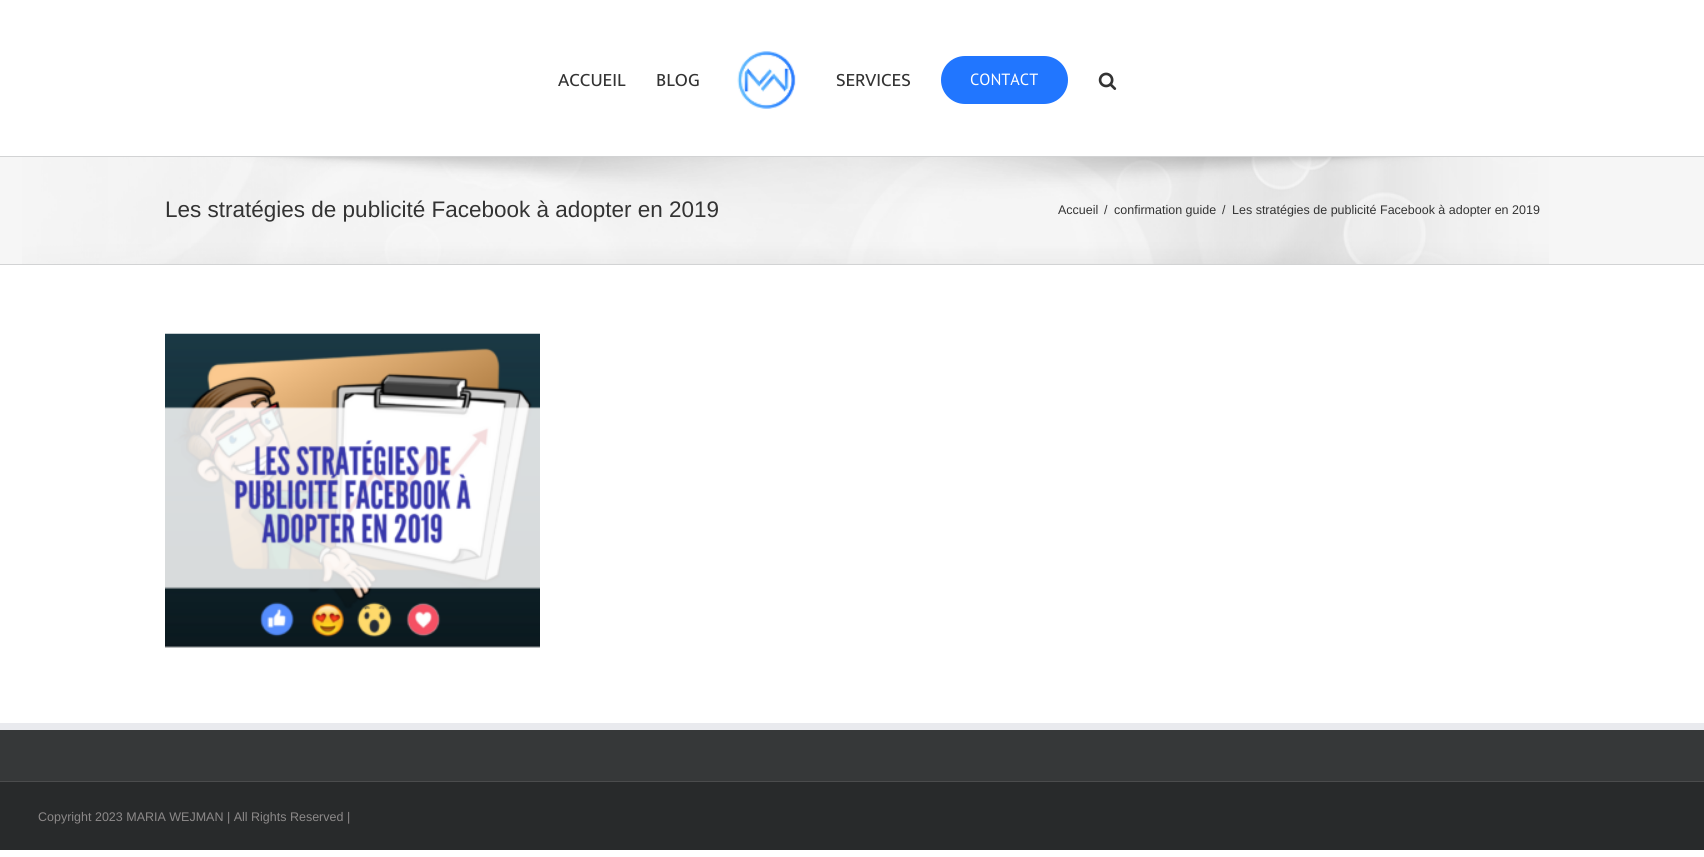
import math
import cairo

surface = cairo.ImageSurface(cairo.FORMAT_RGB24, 1704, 857)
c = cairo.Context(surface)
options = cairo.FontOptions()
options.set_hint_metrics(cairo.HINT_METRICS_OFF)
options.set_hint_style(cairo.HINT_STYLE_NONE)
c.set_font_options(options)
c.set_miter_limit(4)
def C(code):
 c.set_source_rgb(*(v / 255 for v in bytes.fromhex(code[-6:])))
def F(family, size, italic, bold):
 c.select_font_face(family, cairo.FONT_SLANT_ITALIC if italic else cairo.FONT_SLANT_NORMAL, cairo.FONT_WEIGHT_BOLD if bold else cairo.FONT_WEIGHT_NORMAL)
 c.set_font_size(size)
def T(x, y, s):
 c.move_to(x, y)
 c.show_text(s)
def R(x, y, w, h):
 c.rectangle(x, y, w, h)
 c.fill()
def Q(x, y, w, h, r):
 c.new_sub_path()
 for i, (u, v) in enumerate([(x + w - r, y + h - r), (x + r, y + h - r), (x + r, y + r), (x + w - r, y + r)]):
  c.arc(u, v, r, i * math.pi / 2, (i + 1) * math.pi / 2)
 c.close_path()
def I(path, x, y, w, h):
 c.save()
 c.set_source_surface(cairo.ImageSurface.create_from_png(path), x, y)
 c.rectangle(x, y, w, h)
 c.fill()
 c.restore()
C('ffffff')
c.paint()
F('Mukta',19,0,0)
C('333333')
T(558,86,'ACCUEIL')
T(656,86,'BLOG')
I('1.png',737,51,59,58)
T(836,86,'SERVICES')
C('2176ff')
Q(941,56,127,48,24)
c.fill()
F('PT Sans',16.25,0,0)
C('ffffff')
T(970,85,'CONTACT')
I('2.png',1098,72,19,18)
C('f6f6f6')
R(0,157,1704,107)
I('3.png',22,157,1527,107)
C('d2d3d4')
R(0,156,1704,1)
R(0,264,1704,1)
F('Liberation Sans',22.5,0,0)
C('333333')
T(165,217,'Les stratégies de publicité Facebook à adopter en 2019')
F('Liberation Sans',12.5,0,0)
T(1058,214,'Accueil')
T(1104,214,'/')
T(1114,214,'confirmation guide')
T(1222,214,'/')
T(1232,214,'Les stratégies de publicité Facebook à adopter en 2019')
I('4.png',165,333,375,315)
C('363839')
R(0,730,1704,51)
C('e9eaee')
R(0,723,1704,7)
C('282a2b')
R(0,782,1704,68)
C('4b4c4d')
R(0,781,1704,1)
C('8c8989')
T(38,821,'Copyright 2023 MARIA WEJMAN | All Rights Reserved |')
surface.write_to_png('o.png')
